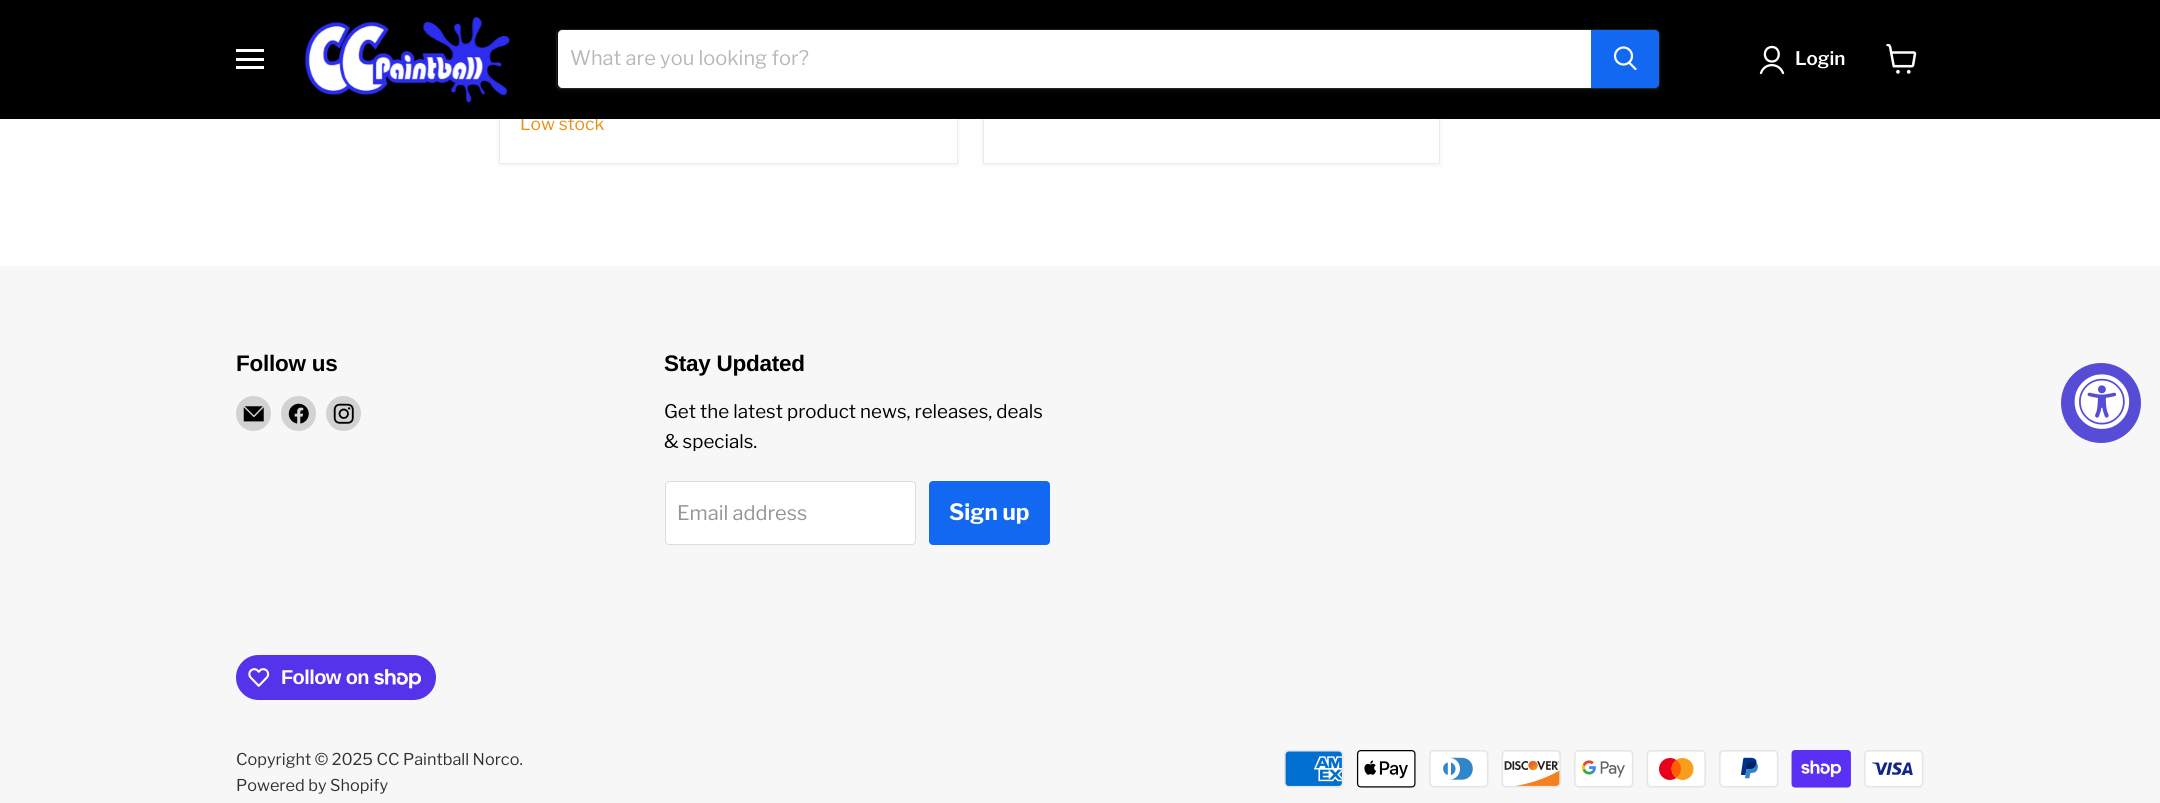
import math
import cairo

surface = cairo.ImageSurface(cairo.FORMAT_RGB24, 2160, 803)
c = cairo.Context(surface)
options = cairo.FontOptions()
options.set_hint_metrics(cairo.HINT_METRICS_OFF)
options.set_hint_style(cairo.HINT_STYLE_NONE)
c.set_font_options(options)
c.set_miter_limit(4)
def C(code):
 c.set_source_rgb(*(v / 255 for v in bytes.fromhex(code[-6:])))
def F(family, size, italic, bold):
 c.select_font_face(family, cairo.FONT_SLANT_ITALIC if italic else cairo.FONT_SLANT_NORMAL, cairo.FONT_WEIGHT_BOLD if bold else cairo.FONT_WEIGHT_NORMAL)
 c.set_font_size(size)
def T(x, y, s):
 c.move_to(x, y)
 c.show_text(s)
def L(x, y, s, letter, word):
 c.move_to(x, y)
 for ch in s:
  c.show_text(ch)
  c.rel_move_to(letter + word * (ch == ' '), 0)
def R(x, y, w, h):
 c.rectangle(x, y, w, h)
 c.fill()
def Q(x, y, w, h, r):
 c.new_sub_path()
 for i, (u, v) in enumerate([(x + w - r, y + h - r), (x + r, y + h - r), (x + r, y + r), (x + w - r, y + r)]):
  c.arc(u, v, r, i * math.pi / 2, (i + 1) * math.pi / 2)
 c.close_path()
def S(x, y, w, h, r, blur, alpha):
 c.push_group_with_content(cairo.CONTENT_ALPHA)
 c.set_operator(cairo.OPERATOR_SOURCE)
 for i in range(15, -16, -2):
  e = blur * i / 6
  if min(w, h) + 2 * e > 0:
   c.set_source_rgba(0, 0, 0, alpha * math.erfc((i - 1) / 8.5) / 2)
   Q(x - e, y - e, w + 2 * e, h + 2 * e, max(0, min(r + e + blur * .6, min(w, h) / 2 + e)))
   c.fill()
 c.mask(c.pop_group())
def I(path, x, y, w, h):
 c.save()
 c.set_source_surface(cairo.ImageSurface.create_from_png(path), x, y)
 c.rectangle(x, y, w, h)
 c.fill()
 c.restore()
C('ffffff')
c.paint()
C('808080')
S(499,-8,459,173,0,2.5,.11)
C('ffffff')
R(500,119,457,44)
c.rectangle(499.5,-.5,458,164)
C('ebebeb')
c.set_line_width(1)
c.stroke()
F('Libre Franklin',17.5,0,0)
C('e99114')
T(520,130,'Low stock')
C('808080')
S(983,-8,457,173,0,2.5,.11)
C('ffffff')
R(984,119,455,44)
c.rectangle(983.5,-.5,456,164)
C('ebebeb')
c.stroke()
C('000000')
R(0,0,2160,119)
C('ffffff')
R(236,49,28,3)
R(236,58,28,3)
R(236,66,28,3)
I('1.png',304,17,207,86)
C('808080')
S(556,31,1104,60,5,2,.11)
Q(556.5,29.5,1103,59,4.5)
c.set_source_rgba(0.502,0.502,0.502,0.2)
c.stroke()
C('ffffff')
c.new_path()
c.move_to(562,30)
c.line_to(1591,30)
c.line_to(1591,88)
c.line_to(562,88)
c.curve_to(560,88,558,86,558,84)
c.line_to(558,34)
c.curve_to(558,32,560,30,562,30)
c.close_path()
c.fill()
F('Libre Franklin',20,0,0)
C('b8b8b8')
T(570,65,'What are you looking for?')
C('1268f1')
c.new_path()
c.move_to(1591.5,30.5)
c.line_to(1655,30.5)
c.curve_to(1657,30.5,1658.5,32,1658.5,34)
c.line_to(1658.5,84)
c.curve_to(1658.5,86,1657,87.5,1655,87.5)
c.line_to(1591.5,87.5)
c.close_path()
c.fill_preserve()
c.stroke()
c.new_path()
c.move_to(1635.5,69)
c.line_to(1629.5,63)
C('ffffff')
c.set_line_width(2.2)
c.set_line_cap(cairo.LINE_CAP_ROUND)
c.stroke()
c.arc(1623.5,56,8.5,0,2 * math.pi)
c.set_line_cap(cairo.LINE_CAP_BUTT)
c.stroke()
c.new_path()
c.move_to(1772,61.5)
c.curve_to(1781,61.5,1781,47,1772,47)
c.curve_to(1762.5,47,1762.5,61.5,1772,61.5)
c.close_path()
c.move_to(1783,73)
c.curve_to(1779,62.5,1764.5,62.5,1761,73)
c.set_line_width(2.3)
c.set_line_cap(cairo.LINE_CAP_ROUND)
c.set_line_join(cairo.LINE_JOIN_ROUND)
c.stroke()
F('Libre Franklin SemiBold',18.75,0,0)
T(1795,65,'Login')
I('2.png',1886,44,31,30)
C('f7f7f7')
R(0,266,2160,537)
F('Arimo',22.5,0,1)
C('000000')
L(236,371,'Follow us',-.25,0)
C('d2d2d2')
c.new_path()
c.arc(253.5,413.5,17.5,0,2 * math.pi)
c.fill()
I('3.png',243,406,21,16)
c.arc(298.5,413.5,17.5,0,2 * math.pi)
c.fill()
I('4.png',288,403,21,21)
c.arc(343.5,413.5,17.5,0,2 * math.pi)
c.fill()
I('5.png',333,403,21,21)
C('000000')
L(664,371,'Stay Updated',-.25,0)
F('Libre Franklin',18.75,0,0)
T(664,418,'Get the latest product news, releases, deals')
T(664,448,'& specials.')
C('ffffff')
Q(665.5,481.5,250,63,3.5)
c.fill_preserve()
C('dddddd')
c.set_line_width(1)
c.set_line_cap(cairo.LINE_CAP_BUTT)
c.set_line_join(cairo.LINE_JOIN_MITER)
c.stroke()
F('Libre Franklin',20,0,0)
C('949494')
T(677,520,'Email address')
C('1268f1')
Q(929.5,481.5,120,63,3.5)
c.fill_preserve()
c.stroke()
F('Libre Franklin',22.5,0,1)
C('ffffff')
T(949,520,'Sign up')
C('5433eb')
Q(236,655,200,45,22.5)
c.fill()
I('6.png',248,668,22,19)
F('Liberation Sans',20,0,1)
C('ffffff')
L(281,684,'Follow on',-.6,0)
I('7.png',374,669,47,20)
F('Libre Franklin',16.25,0,0)
C('313131')
T(236,765,'Copyright © 2025 CC Paintball Norco.')
T(236,791,'Powered by Shopify')
I('8.png',1284,750,60,38)
I('9.png',1356,750,60,38)
I('10.png',1429,750,60,38)
I('11.png',1501,750,60,38)
I('12.png',1574,750,60,38)
I('13.png',1646,750,60,38)
I('14.png',1719,750,60,38)
I('15.png',1791,750,60,38)
I('16.png',1864,750,60,38)
C('574cd5')
c.arc(2101,403,40,0,2 * math.pi)
c.fill()
I('17.png',2074,374,56,55)
surface.write_to_png('o.png')
